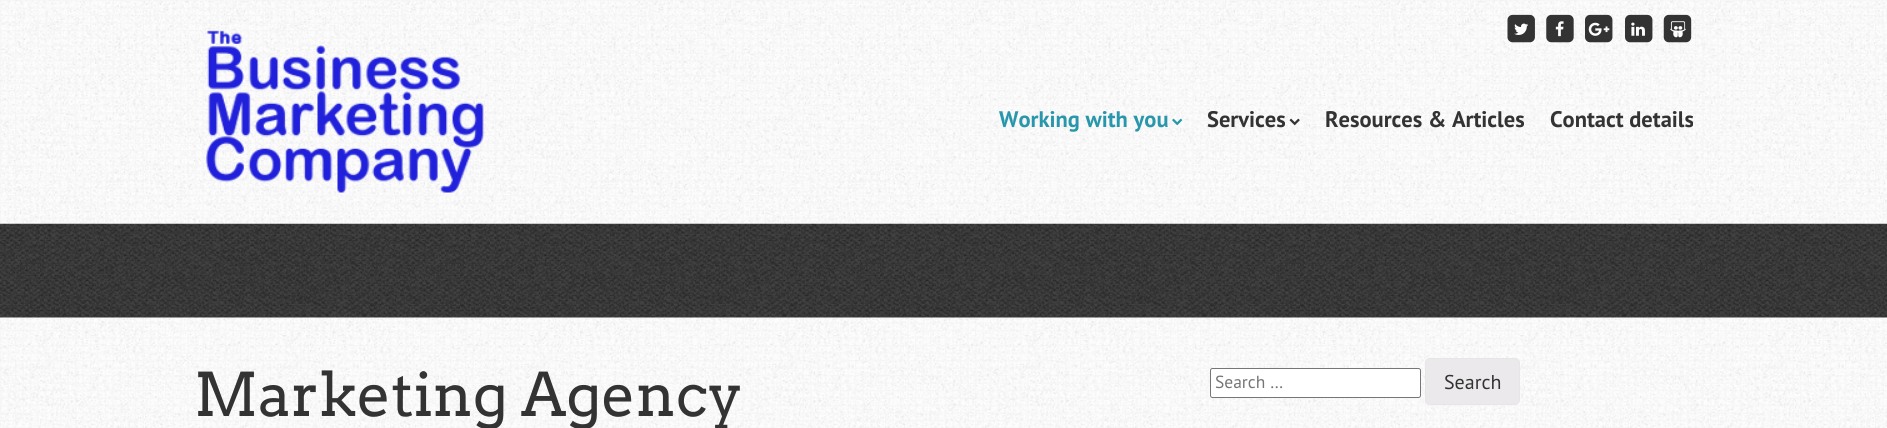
import math
import cairo

surface = cairo.ImageSurface(cairo.FORMAT_RGB24, 1887, 428)
c = cairo.Context(surface)
options = cairo.FontOptions()
options.set_hint_metrics(cairo.HINT_METRICS_OFF)
options.set_hint_style(cairo.HINT_STYLE_NONE)
c.set_font_options(options)
c.set_miter_limit(4)
def C(code):
 c.set_source_rgb(*(v / 255 for v in bytes.fromhex(code[-6:])))
def F(family, size, italic, bold):
 c.select_font_face(family, cairo.FONT_SLANT_ITALIC if italic else cairo.FONT_SLANT_NORMAL, cairo.FONT_WEIGHT_BOLD if bold else cairo.FONT_WEIGHT_NORMAL)
 c.set_font_size(size)
def T(x, y, s):
 c.move_to(x, y)
 c.show_text(s)
def R(x, y, w, h):
 c.rectangle(x, y, w, h)
 c.fill()
def Q(x, y, w, h, r):
 c.new_sub_path()
 for i, (u, v) in enumerate([(x + w - r, y + h - r), (x + r, y + h - r), (x + r, y + r), (x + w - r, y + r)]):
  c.arc(u, v, r, i * math.pi / 2, (i + 1) * math.pi / 2)
 c.close_path()
def I(path, x, y, w, h):
 c.save()
 c.set_source_surface(cairo.ImageSurface.create_from_png(path), x, y)
 c.rectangle(x, y, w, h)
 c.fill()
 c.restore()
C('ffffff')
c.paint()
I('1.png',0,0,1887,428)
I('2.png',206,30,278,163)
I('3.png',1507,14,28,29)
I('4.png',1514,23,14,12)
I('5.png',1546,14,28,29)
I('6.png',1555,21,9,16)
I('7.png',1585,14,28,29)
I('8.png',1588,22,22,14)
I('9.png',1625,14,28,29)
I('10.png',1631,22,14,14)
I('11.png',1663,14,29,29)
I('12.png',1670,21,16,17)
F('PT Sans',22.5,0,1)
C('2997ab')
T(999,127,'Working with you')
I('13.png',1172,118,11,8)
C('333333')
T(1207,127,'Services')
I('14.png',1289,118,11,8)
T(1325,127,'Resources & Articles')
T(1550,127,'Contact details')
C('ffffff')
R(0,317,1887,1)
I('15.png',0,223,1887,95)
F('Arvo',60,0,0)
C('333333')
T(194,416,'Marketing Agency')
C('ffffff')
Q(1210.5,368.5,210,29,2)
c.fill_preserve()
C('767676')
c.set_line_width(1)
c.stroke()
F('PT Sans',17.5,0,0)
C('757575')
T(1215,388,'Search …')
C('ebe9eb')
Q(1425.5,358.5,94,46,4.5)
c.fill_preserve()
C('e6e6e6')
c.stroke()
F('PT Sans',20,0,0)
C('333333')
T(1444,389,'Search')
surface.write_to_png('o.png')
